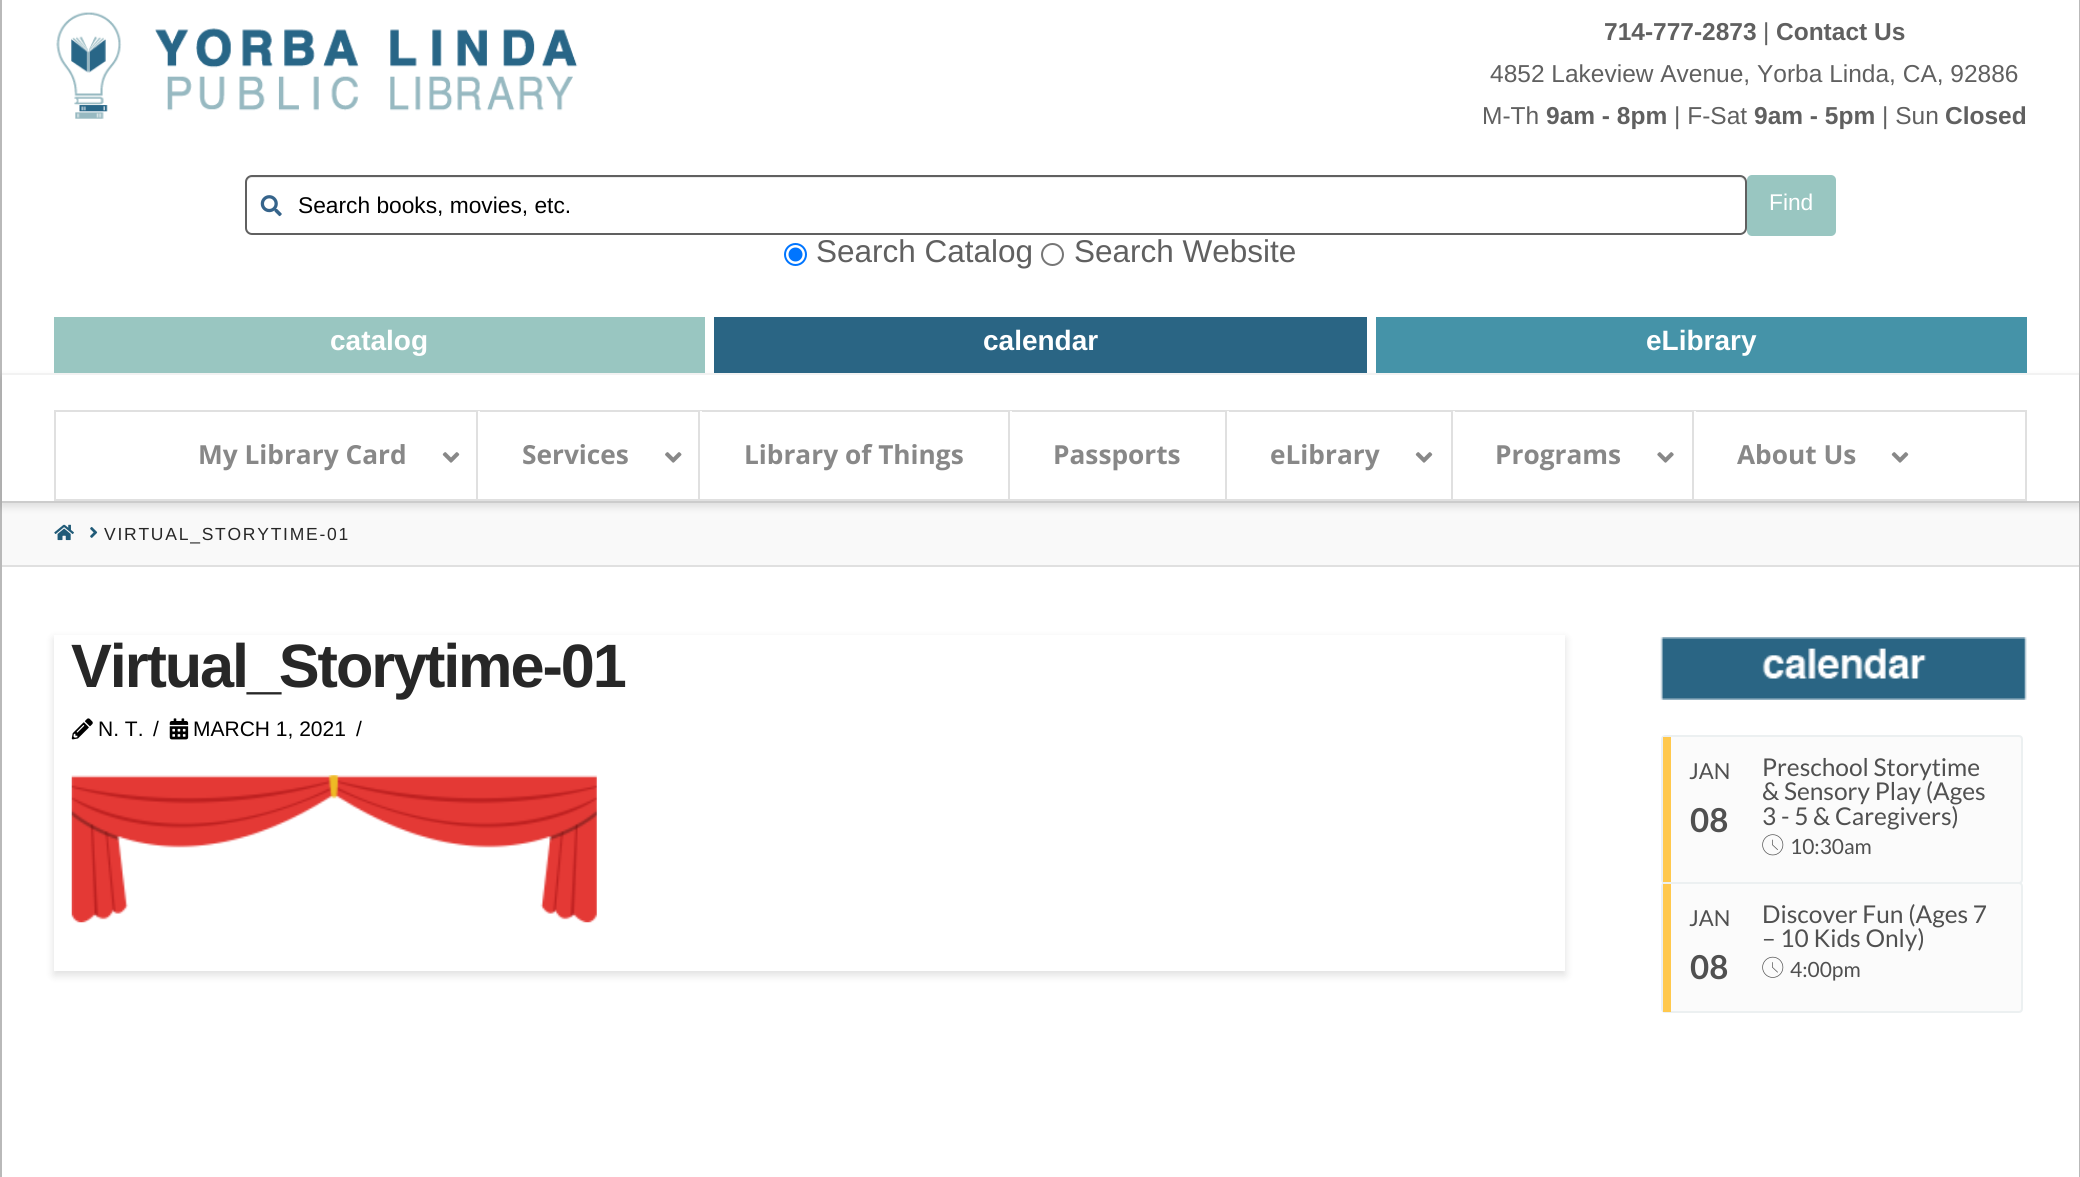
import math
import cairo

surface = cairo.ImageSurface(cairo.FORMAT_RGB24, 2080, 1177)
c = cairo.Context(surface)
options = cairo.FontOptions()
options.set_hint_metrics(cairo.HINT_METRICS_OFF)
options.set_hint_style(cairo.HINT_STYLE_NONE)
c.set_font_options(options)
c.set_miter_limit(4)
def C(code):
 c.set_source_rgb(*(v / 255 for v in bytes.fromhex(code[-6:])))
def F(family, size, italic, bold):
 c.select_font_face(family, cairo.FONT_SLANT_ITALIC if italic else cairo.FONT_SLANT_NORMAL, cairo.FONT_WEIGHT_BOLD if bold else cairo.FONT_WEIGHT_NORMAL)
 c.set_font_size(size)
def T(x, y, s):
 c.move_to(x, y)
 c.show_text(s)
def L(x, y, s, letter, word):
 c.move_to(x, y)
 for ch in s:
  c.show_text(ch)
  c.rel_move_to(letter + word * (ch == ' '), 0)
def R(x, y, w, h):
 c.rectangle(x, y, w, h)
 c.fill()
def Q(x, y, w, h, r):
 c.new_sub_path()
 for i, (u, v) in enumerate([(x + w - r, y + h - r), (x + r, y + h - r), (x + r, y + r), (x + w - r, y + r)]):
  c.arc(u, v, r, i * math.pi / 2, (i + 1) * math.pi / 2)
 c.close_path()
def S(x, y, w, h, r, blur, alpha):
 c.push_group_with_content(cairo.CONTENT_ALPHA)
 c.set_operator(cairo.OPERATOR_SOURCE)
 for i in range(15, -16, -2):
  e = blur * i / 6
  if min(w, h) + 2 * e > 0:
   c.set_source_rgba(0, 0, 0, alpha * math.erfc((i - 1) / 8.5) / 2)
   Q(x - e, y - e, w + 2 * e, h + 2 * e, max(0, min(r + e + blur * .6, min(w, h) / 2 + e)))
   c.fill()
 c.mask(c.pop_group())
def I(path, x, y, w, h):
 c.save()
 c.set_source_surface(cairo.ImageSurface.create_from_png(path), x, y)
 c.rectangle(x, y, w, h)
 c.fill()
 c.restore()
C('ffffff')
c.paint()
C('b9b9b9')
R(2079,0,1,1177)
R(0,0,2,1177)
C('f9f9f9')
R(2,503,2077,62)
c.save()
c.set_fill_rule(cairo.FILL_RULE_EVEN_ODD)
c.new_path()
c.move_to(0,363)
c.line_to(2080,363)
c.line_to(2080,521)
c.line_to(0,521)
c.close_path()
c.move_to(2,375)
c.line_to(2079,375)
c.line_to(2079,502)
c.line_to(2,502)
c.close_path()
c.clip()
C('000000')
S(2,378,2077,128,0,4.5,.13)
c.restore()
C('f2f2f2')
R(2,373,2077,2)
I('1.png',56,12,522,107)
F('Liberation Sans',24.5,0,1)
C('606060')
T(1604,40,'714-777-2873')
F('Liberation Sans',24.5,0,0)
T(1763,40,'|')
F('Liberation Sans',24.5,0,1)
T(1776,40,'Contact Us')
F('Liberation Sans',24.5,0,0)
T(1490,82,'4852 Lakeview Avenue, Yorba Linda, CA, 92886')
T(1482,124,'M-Th')
F('Liberation Sans',24.5,0,1)
T(1546,124,'9am - 8pm')
F('Liberation Sans',24.5,0,0)
T(1674,124,'| F-Sat')
F('Liberation Sans',24.5,0,1)
T(1754,124,'9am - 5pm')
F('Liberation Sans',24.5,0,0)
T(1882,124,'| Sun')
F('Liberation Sans',24.5,0,1)
T(1945,124,'Closed')
C('ececec')
c.new_path()
c.move_to(252,178)
c.line_to(1740,178)
c.curve_to(1742,178,1745,181,1745,184)
c.curve_to(1745,181,1744,177,1740,177)
c.line_to(252,177)
c.curve_to(248,177,247,181,247,184)
c.curve_to(247,181,249,178,252,178)
c.close_path()
c.fill()
Q(246,176,1500,58,6)
C('606060')
c.stroke()
I('2.png',260,195,22,22)
F('Liberation Sans',22.75,0,0)
C('000000')
T(298,213,'Search books, movies, etc.')
C('99c6c1')
Q(1747,175,89,61,5)
c.fill()
C('ffffff')
T(1769,210,'Find')
c.new_path()
c.arc(795.5,254.5,10.5,0,2 * math.pi)
C('0075ff')
c.stroke()
c.arc(795.5,254.5,7,0,2 * math.pi)
c.fill()
F('Liberation Sans',31.5,0,0)
C('606060')
T(816,262,'Search Catalog')
c.new_path()
c.arc(1052.5,254.5,10.5,0,2 * math.pi)
C('767676')
c.stroke()
C('606060')
T(1074,262,'Search Website')
C('99c6c1')
R(54,317,651,56)
F('Liberation Sans',28,0,1)
C('ffffff')
T(330,350,'catalog')
C('2a6584')
R(714,317,653,56)
C('ffffff')
T(983,350,'calendar')
C('4593a8')
R(1376,317,651,56)
C('ffffff')
T(1646,350,'eLibrary')
C('cccccc')
R(2,501,2077,2)
c.rectangle(55,411,1971,89)
C('e0e0e0')
c.stroke()
F('Open Sans',26.25,0,1)
C('888888')
T(198,464,'My Library Card')
I('3.png',442,452,18,11)
c.set_source_rgba(1,1,1,0.9)
R(478,411,2,1)
C('e0e0e0')
R(476,411,2,88)
C('888888')
T(522,464,'Services')
I('4.png',665,452,17,11)
c.set_source_rgba(1,1,1,0.9)
R(700,411,2,1)
C('e0e0e0')
R(698,411,2,88)
C('888888')
T(744,464,'Library of Things')
c.set_source_rgba(1,1,1,0.9)
R(1010,411,2,1)
C('e0e0e0')
R(1008,411,2,88)
C('888888')
T(1053,464,'Passports')
c.set_source_rgba(1,1,1,0.9)
R(1227,411,2,1)
C('e0e0e0')
R(1225,411,2,88)
C('888888')
T(1270,464,'eLibrary')
I('3.png',1415,452,18,11)
c.set_source_rgba(1,1,1,0.9)
R(1453,411,2,1)
C('e0e0e0')
R(1451,411,2,88)
C('888888')
T(1495,464,'Programs')
I('5.png',1657,452,17,11)
c.set_source_rgba(1,1,1,0.9)
R(1694,411,2,1)
C('e0e0e0')
R(1692,411,2,88)
C('888888')
T(1737,464,'About Us')
I('3.png',1891,452,18,11)
C('e0e0e0')
R(2,565,2077,2)
I('6.png',54,524,20,17)
I('7.png',90,527,8,11)
F('Liberation Sans',17.5,0,0)
C('272727')
L(104,540,'VIRTUAL_STORYTIME-01',1.75,0)
C('000000')
S(54,639,1511,336,0,4.5,.13)
C('ffffff')
R(54,635,1511,336)
F('Liberation Sans',61.25,0,1)
C('272727')
L(71,687,'Virtual_Storytime-01',-2.1,0)
I('8.png',71,718,22,22)
F('Liberation Sans',21,0,0)
C('000000')
T(98,736,'N. T.')
T(153,736,'/')
I('9.png',169,718,20,22)
T(193,736,'MARCH 1, 2021')
T(356,736,'/')
I('10.png',71,775,526,148)
I('11.png',1660,637,367,63)
C('fbfbfb')
Q(1662,736,360,147,3)
c.fill_preserve()
C('ecf0f1')
c.stroke()
C('ffc84d')
R(1663,737,8,145)
F('Lato',22,0,0)
C('505050')
T(1689,779,'JAN')
F('Lato',33,0,1)
T(1690,832,'08')
F('Lato',24.5,0,0)
T(1762,776,'Preschool Storytime')
T(1762,800,'& Sensory Play (Ages')
T(1762,825,'3 - 5 & Caregivers)')
I('12.png',1762,834,22,22)
F('Lato',21,0,0)
T(1790,854,'10:30am')
C('fbfbfb')
Q(1662,883,360,129,3)
c.fill_preserve()
C('ecf0f1')
c.stroke()
C('ffc84d')
R(1663,884,8,128)
F('Lato',22,0,0)
C('505050')
T(1689,926,'JAN')
F('Lato',33,0,1)
T(1690,979,'08')
F('Lato',24.5,0,0)
T(1762,923,'Discover Fun (Ages 7')
T(1762,947,'– 10 Kids Only)')
I('13.png',1762,956,22,22)
F('Lato',21,0,0)
T(1790,977,'4:00pm')
surface.write_to_png('o.png')
